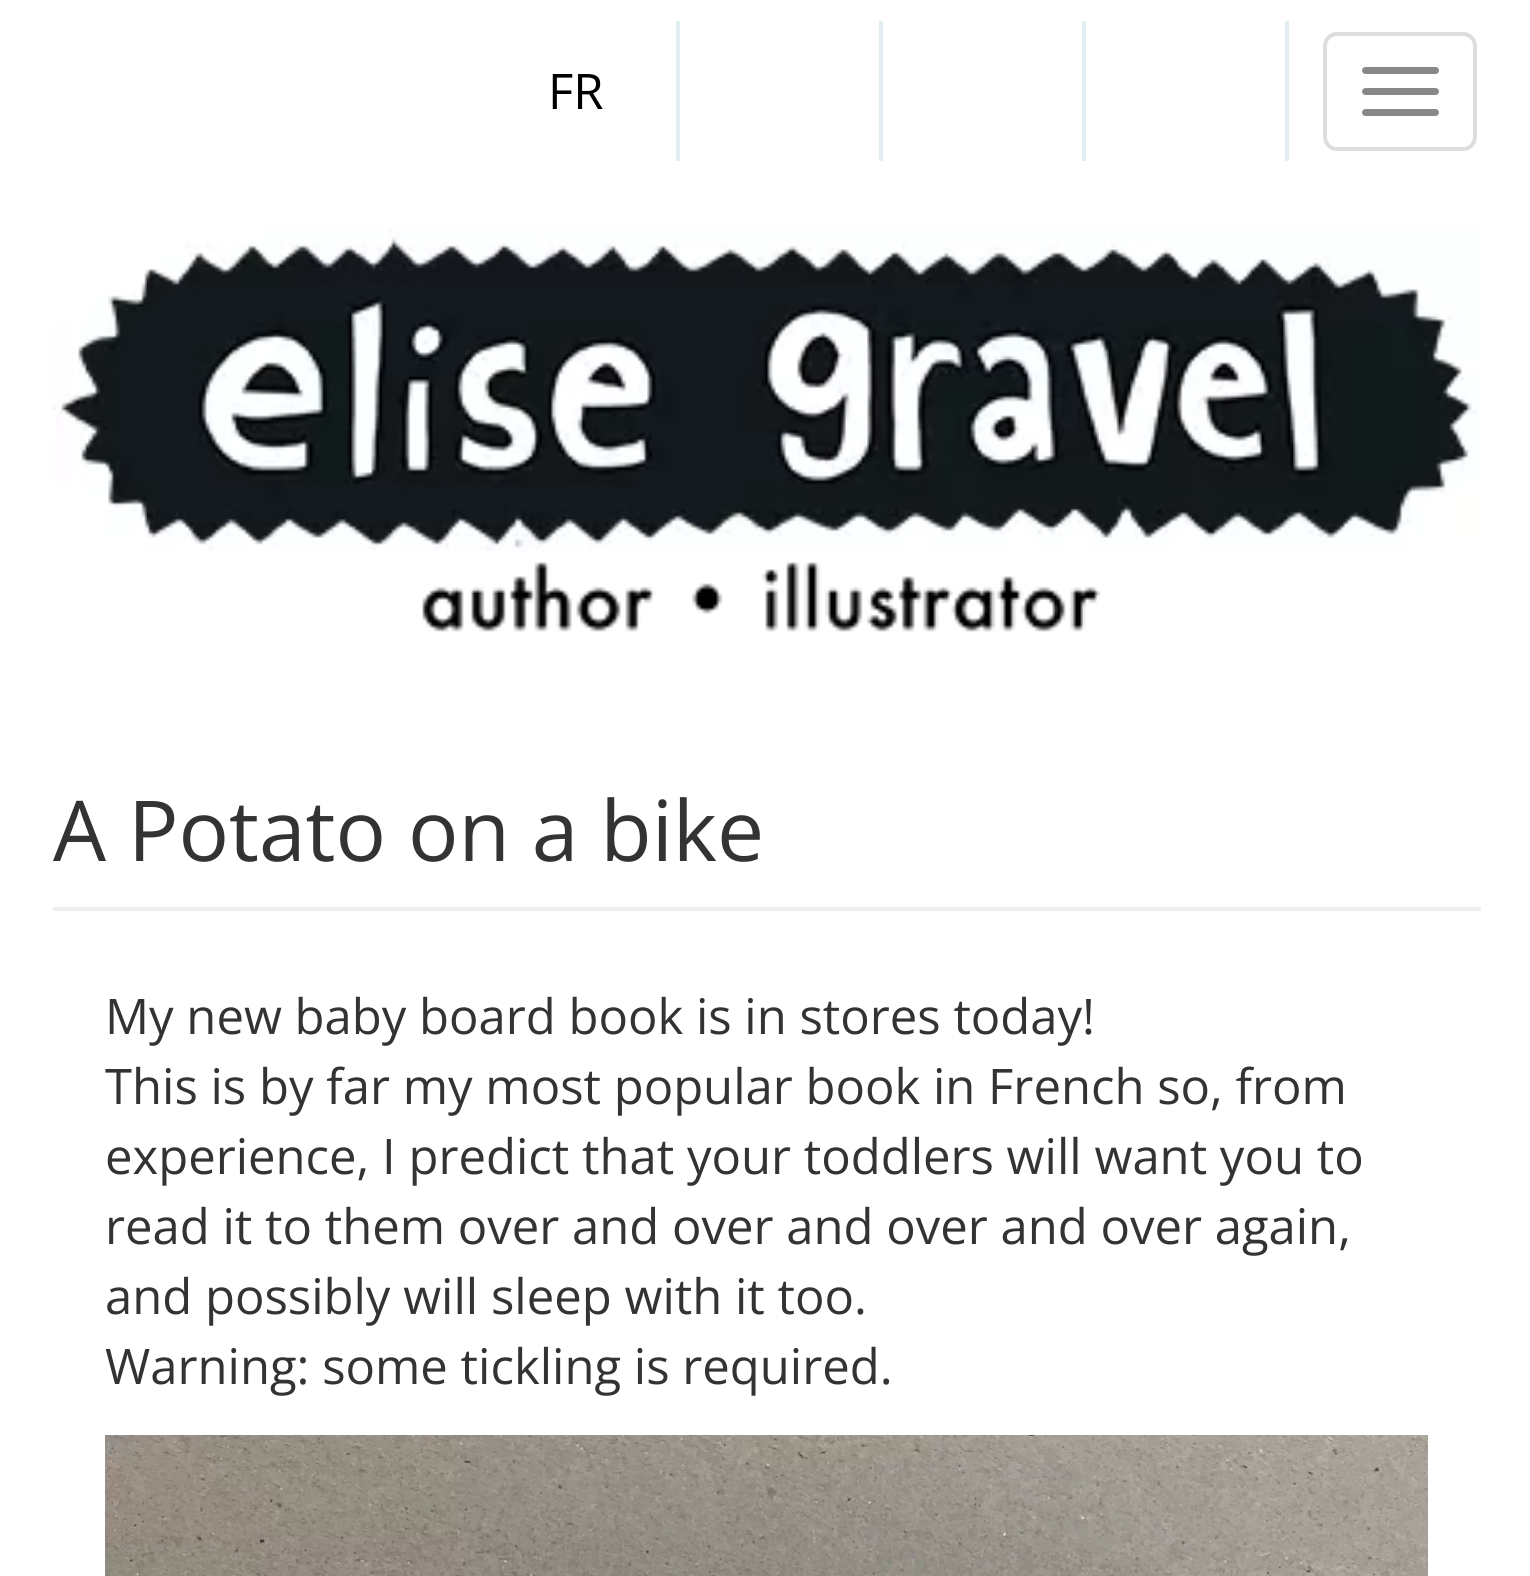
import math
import cairo

surface = cairo.ImageSurface(cairo.FORMAT_RGB24, 1530, 1576)
c = cairo.Context(surface)
options = cairo.FontOptions()
options.set_hint_metrics(cairo.HINT_METRICS_OFF)
options.set_hint_style(cairo.HINT_STYLE_NONE)
c.set_font_options(options)
c.set_miter_limit(4)
def C(code):
 c.set_source_rgb(*(v / 255 for v in bytes.fromhex(code[-6:])))
def F(family, size, italic, bold):
 c.select_font_face(family, cairo.FONT_SLANT_ITALIC if italic else cairo.FONT_SLANT_NORMAL, cairo.FONT_WEIGHT_BOLD if bold else cairo.FONT_WEIGHT_NORMAL)
 c.set_font_size(size)
def T(x, y, s):
 c.move_to(x, y)
 c.show_text(s)
def R(x, y, w, h):
 c.rectangle(x, y, w, h)
 c.fill()
def Q(x, y, w, h, r):
 c.new_sub_path()
 for i, (u, v) in enumerate([(x + w - r, y + h - r), (x + r, y + h - r), (x + r, y + r), (x + w - r, y + r)]):
  c.arc(u, v, r, i * math.pi / 2, (i + 1) * math.pi / 2)
 c.close_path()
def I(path, x, y, w, h):
 c.save()
 c.set_source_surface(cairo.ImageSurface.create_from_png(path), x, y)
 c.rectangle(x, y, w, h)
 c.fill()
 c.restore()
C('ffffff')
c.paint()
C('e1eff2')
R(676,21,4,140)
F('Open Sans',49,0,0)
C('000000')
T(548,109,'FR')
C('e1eff2')
R(879,21,4,140)
R(1082,21,4,140)
R(1285,21,4,140)
Q(1325,34,150,115,12)
C('dddddd')
c.set_line_width(4)
c.stroke()
C('888888')
Q(1362,67,77,7,3.5)
c.fill()
Q(1362,88,77,7,3.5)
c.fill()
Q(1362,109,77,7,3.5)
c.fill()
I('1.png',52,227,1428,324)
I('2.png',422,562,679,70)
C('eeeeee')
R(53,907,1428,4)
F('Open Sans',84,0,0)
C('333333')
T(53,861,'A Potato on a bike')
F('Open Sans',49,0,0)
T(105,1034,'My new baby board book is in stores today!')
T(105,1104,'This is by far my most popular book in French so, from')
T(105,1174,'experience, I predict that your toddlers will want you to')
T(105,1244,'read it to them over and over and over and over again,')
T(105,1314,'and possibly will sleep with it too.')
T(105,1384,'Warning: some tickling is required.')
I('3.png',105,1435,1323,141)
surface.write_to_png('o.png')
